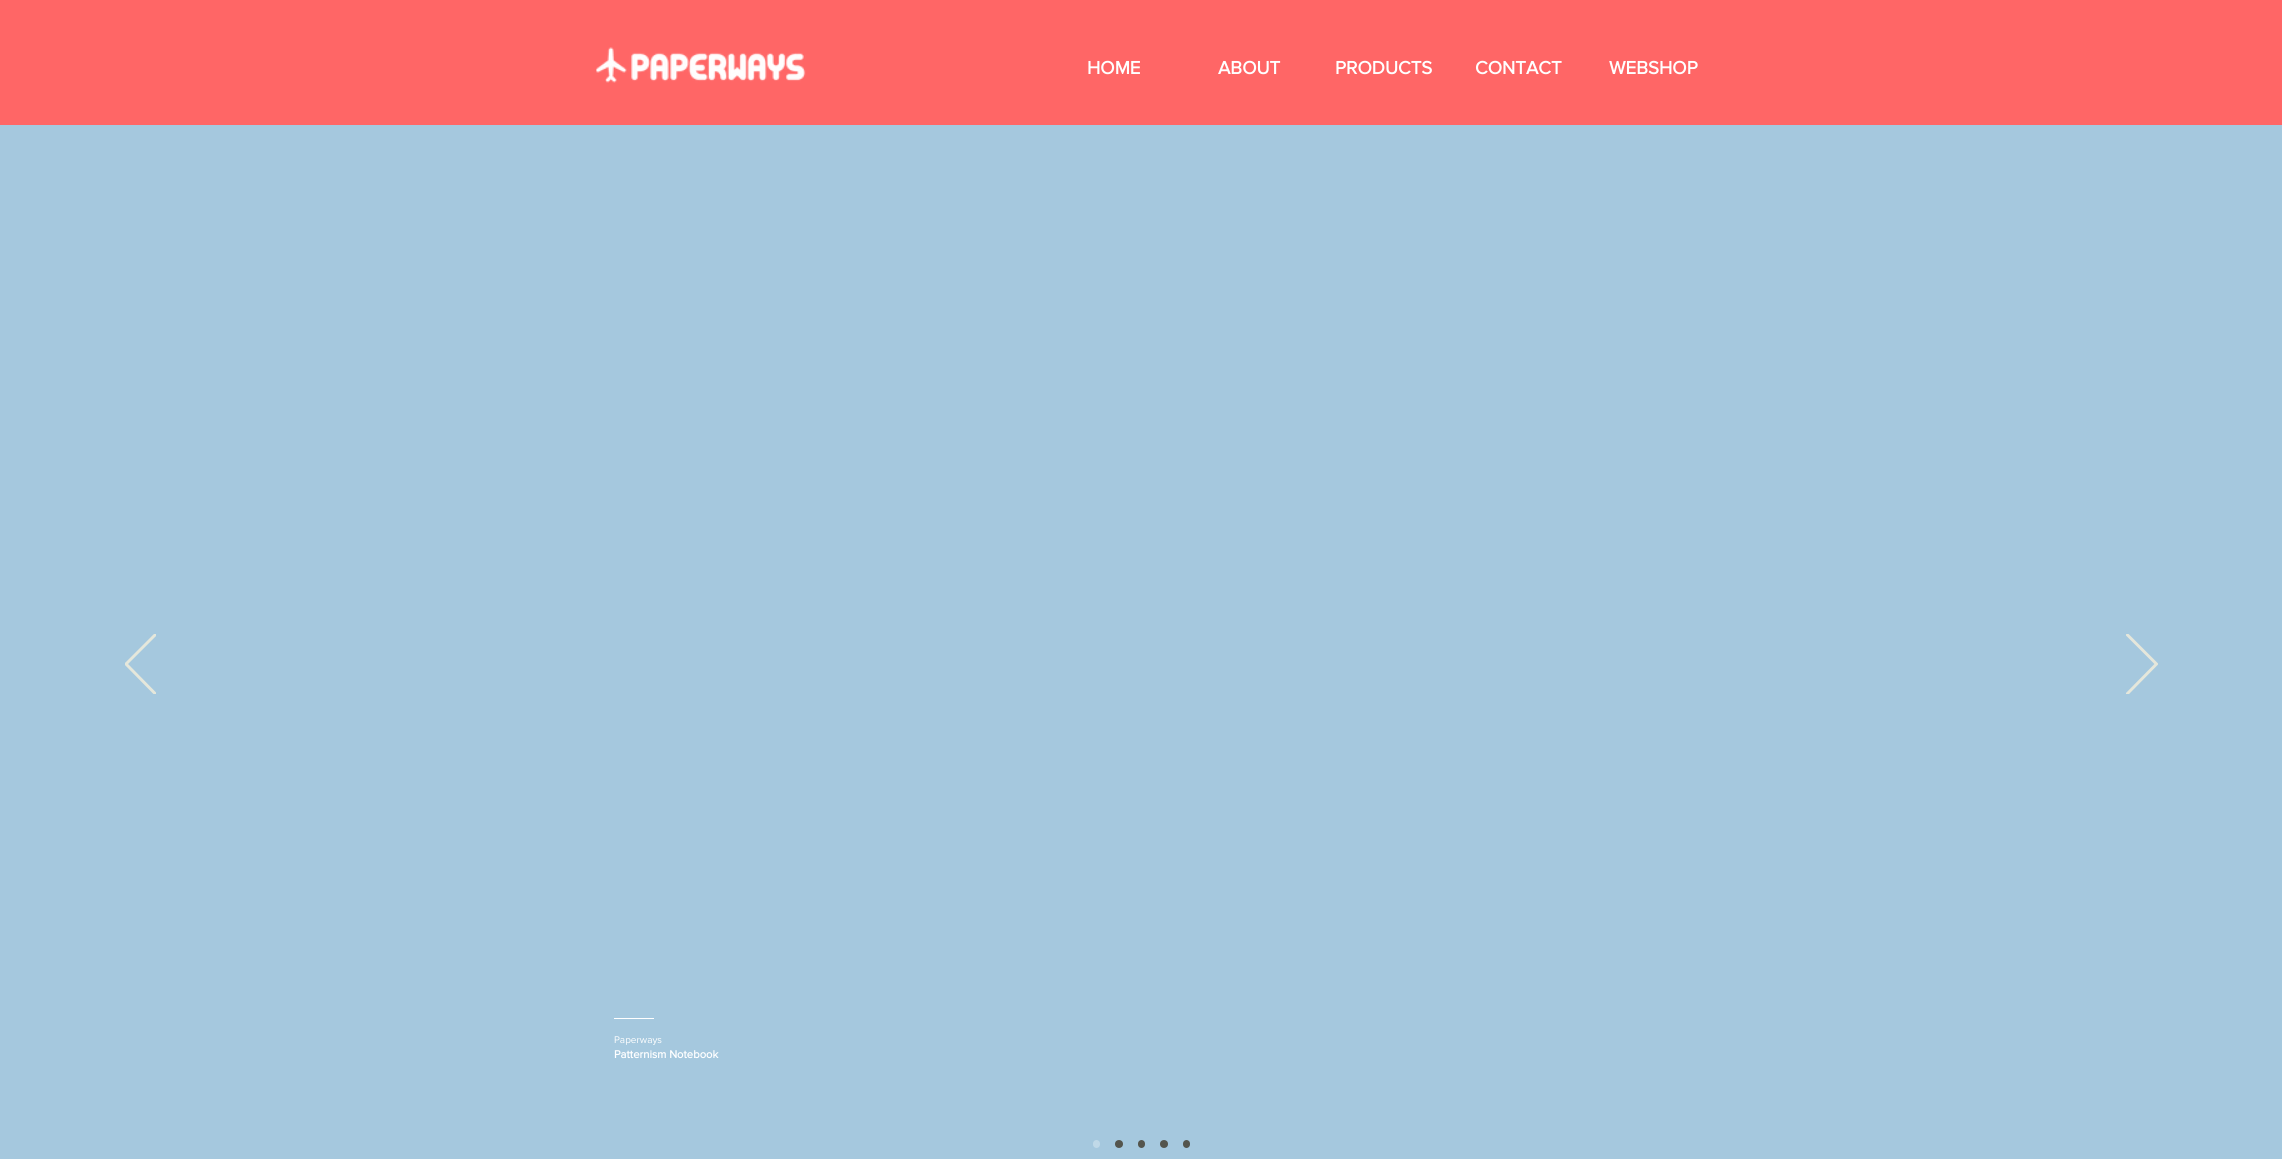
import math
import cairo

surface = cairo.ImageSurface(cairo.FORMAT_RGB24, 2282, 1159)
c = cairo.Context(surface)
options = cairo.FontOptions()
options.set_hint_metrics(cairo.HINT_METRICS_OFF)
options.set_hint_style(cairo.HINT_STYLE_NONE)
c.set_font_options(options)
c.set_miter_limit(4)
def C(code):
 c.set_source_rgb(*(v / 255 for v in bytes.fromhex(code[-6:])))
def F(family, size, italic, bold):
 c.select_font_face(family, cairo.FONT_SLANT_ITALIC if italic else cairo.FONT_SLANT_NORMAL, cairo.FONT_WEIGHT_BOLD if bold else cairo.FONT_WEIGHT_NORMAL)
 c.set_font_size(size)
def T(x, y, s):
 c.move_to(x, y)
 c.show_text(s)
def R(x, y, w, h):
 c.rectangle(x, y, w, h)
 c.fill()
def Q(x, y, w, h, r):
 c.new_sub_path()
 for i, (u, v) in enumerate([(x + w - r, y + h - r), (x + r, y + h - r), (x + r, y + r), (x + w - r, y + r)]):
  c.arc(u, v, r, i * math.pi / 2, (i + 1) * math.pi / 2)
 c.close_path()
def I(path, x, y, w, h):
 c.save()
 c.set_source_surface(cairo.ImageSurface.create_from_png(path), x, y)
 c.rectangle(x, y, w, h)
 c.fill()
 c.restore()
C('ff6666')
c.paint()
I('1.png',596,47,210,36)
F('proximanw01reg',18.75,0,1)
C('ffffff')
T(1087,74,'HOME')
T(1218,74,'ABOUT')
T(1335,74,'PRODUCTS')
T(1475,74,'CONTACT')
T(1609,74,'WEBSHOP')
C('a5c8de')
R(0,125,2282,1034)
c.save()
c.rectangle(125,634,31,60)
c.clip()
c.new_path()
c.move_to(155,694.5)
c.line_to(125,664)
c.line_to(155,634)
c.line_to(156,635)
c.line_to(127,664)
c.line_to(156,693.5)
c.close_path()
C('e5e7db')
c.set_line_width(1.5)
c.stroke()
c.restore()
c.save()
c.rectangle(2126,634,32,60)
c.clip()
c.new_path()
c.move_to(2127.5,694.5)
c.line_to(2157.5,664)
c.line_to(2127.5,634)
c.line_to(2126.5,635)
c.line_to(2155.5,664)
c.line_to(2126.5,693.5)
c.close_path()
C('e5e7db')
c.set_line_width(1.5)
c.stroke()
c.restore()
C('ffffff')
R(614,1018,40,1)
F('proximanw01reg',10,0,0)
T(614,1043,'Paperways')
F('proximanw01reg',11.25,0,1)
T(614,1058,'Patternism Notebook')
C('c0d9e8')
Q(1093,1140,7,8,3.5)
c.fill()
C('54554d')
c.arc(1119,1144,4,0,2 * math.pi)
c.fill()
Q(1138,1140,7,8,3.5)
c.fill()
c.arc(1164,1144,4,0,2 * math.pi)
c.fill()
Q(1183,1140,7,8,3.5)
c.fill()
surface.write_to_png('o.png')
